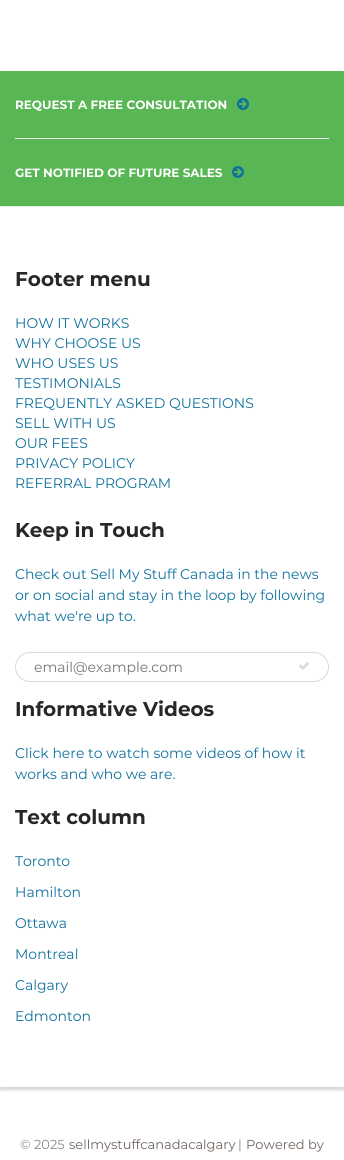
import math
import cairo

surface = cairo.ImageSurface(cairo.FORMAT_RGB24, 344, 1160)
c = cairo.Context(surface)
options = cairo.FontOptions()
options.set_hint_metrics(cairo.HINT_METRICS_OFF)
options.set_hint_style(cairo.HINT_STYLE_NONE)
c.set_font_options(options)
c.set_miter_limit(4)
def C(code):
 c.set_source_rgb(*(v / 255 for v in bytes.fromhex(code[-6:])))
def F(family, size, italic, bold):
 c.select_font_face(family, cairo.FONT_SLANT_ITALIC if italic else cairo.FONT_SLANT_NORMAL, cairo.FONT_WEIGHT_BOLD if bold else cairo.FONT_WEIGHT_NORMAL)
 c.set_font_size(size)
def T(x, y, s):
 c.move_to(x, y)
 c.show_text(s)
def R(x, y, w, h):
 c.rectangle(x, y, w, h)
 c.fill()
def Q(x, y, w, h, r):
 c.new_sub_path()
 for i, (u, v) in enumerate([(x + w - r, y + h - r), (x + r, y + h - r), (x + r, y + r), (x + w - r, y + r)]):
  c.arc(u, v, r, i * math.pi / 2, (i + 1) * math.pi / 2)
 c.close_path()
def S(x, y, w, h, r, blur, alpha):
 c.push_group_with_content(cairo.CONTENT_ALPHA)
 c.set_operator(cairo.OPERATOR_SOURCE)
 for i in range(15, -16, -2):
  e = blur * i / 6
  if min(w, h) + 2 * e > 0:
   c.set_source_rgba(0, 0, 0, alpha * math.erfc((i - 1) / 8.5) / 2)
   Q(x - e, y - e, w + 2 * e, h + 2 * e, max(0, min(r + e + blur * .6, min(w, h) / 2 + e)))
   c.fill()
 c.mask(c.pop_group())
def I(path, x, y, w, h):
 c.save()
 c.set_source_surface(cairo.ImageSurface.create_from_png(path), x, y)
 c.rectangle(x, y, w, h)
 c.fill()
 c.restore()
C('ffffff')
c.paint()
C('58b655')
R(0,71,344,135)
C('ecefef')
R(15,138,314,1)
F('Montserrat',12,0,1)
C('ffffff')
T(15,109,'REQUEST A FREE CONSULTATION')
I('1.png',237,98,12,12)
T(15,177,'GET NOTIFIED OF FUTURE SALES')
I('1.png',232,166,12,12)
c.save()
c.rectangle(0,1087,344,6)
c.clip()
C('d1d7d7')
S(0,209,344,881,0,1.5,1)
c.restore()
C('ecefef')
R(0,206,344,1)
F('Montserrat',20,0,1)
C('282727')
T(15,286,'Footer menu')
F('Montserrat',14,0,0)
C('0f719e')
T(15,328,'HOW IT WORKS')
T(15,348,'WHY CHOOSE US')
T(15,368,'WHO USES US')
T(15,388,'TESTIMONIALS')
T(15,408,'FREQUENTLY ASKED QUESTIONS')
T(15,428,'SELL WITH US')
T(15,448,'OUR FEES')
T(15,468,'PRIVACY POLICY')
T(15,488,'REFERRAL PROGRAM')
F('Montserrat',20,0,1)
C('282727')
T(15,537,'Keep in Touch')
F('Montserrat',14,0,0)
C('0f719e')
T(15,579,'Check out Sell My Stuff Canada in the news')
T(15,600,'or on social and stay in the loop by following')
T(15,621,'what we\'re up to.')
Q(15.5,652.5,313,29,14.5)
C('d7dbdb')
c.set_line_width(1)
c.stroke()
C('757575')
T(34,672,'email@example.com')
I('2.png',299,662,10,8)
F('Montserrat',20,0,1)
C('282727')
T(15,716,'Informative Videos')
F('Montserrat',14,0,0)
C('0f719e')
T(15,758,'Click here to watch some videos of how it')
T(15,779,'works and who we are.')
F('Montserrat',20,0,1)
C('282727')
T(15,824,'Text column')
F('Montserrat',14,0,0)
C('0f719e')
T(15,866,'Toronto')
T(15,897,'Hamilton')
T(15,928,'Ottawa')
T(15,959,'Montreal')
T(15,990,'Calgary')
T(15,1021,'Edmonton')
F('Montserrat',13,0,0)
C('898989')
T(20,1149,'© 2025')
C('70635d')
T(69,1149,'sellmystuffcanadacalgary')
C('898989')
T(238,1149,'|')
C('70635d')
T(246,1149,'Powered by')
surface.write_to_png('o.png')
